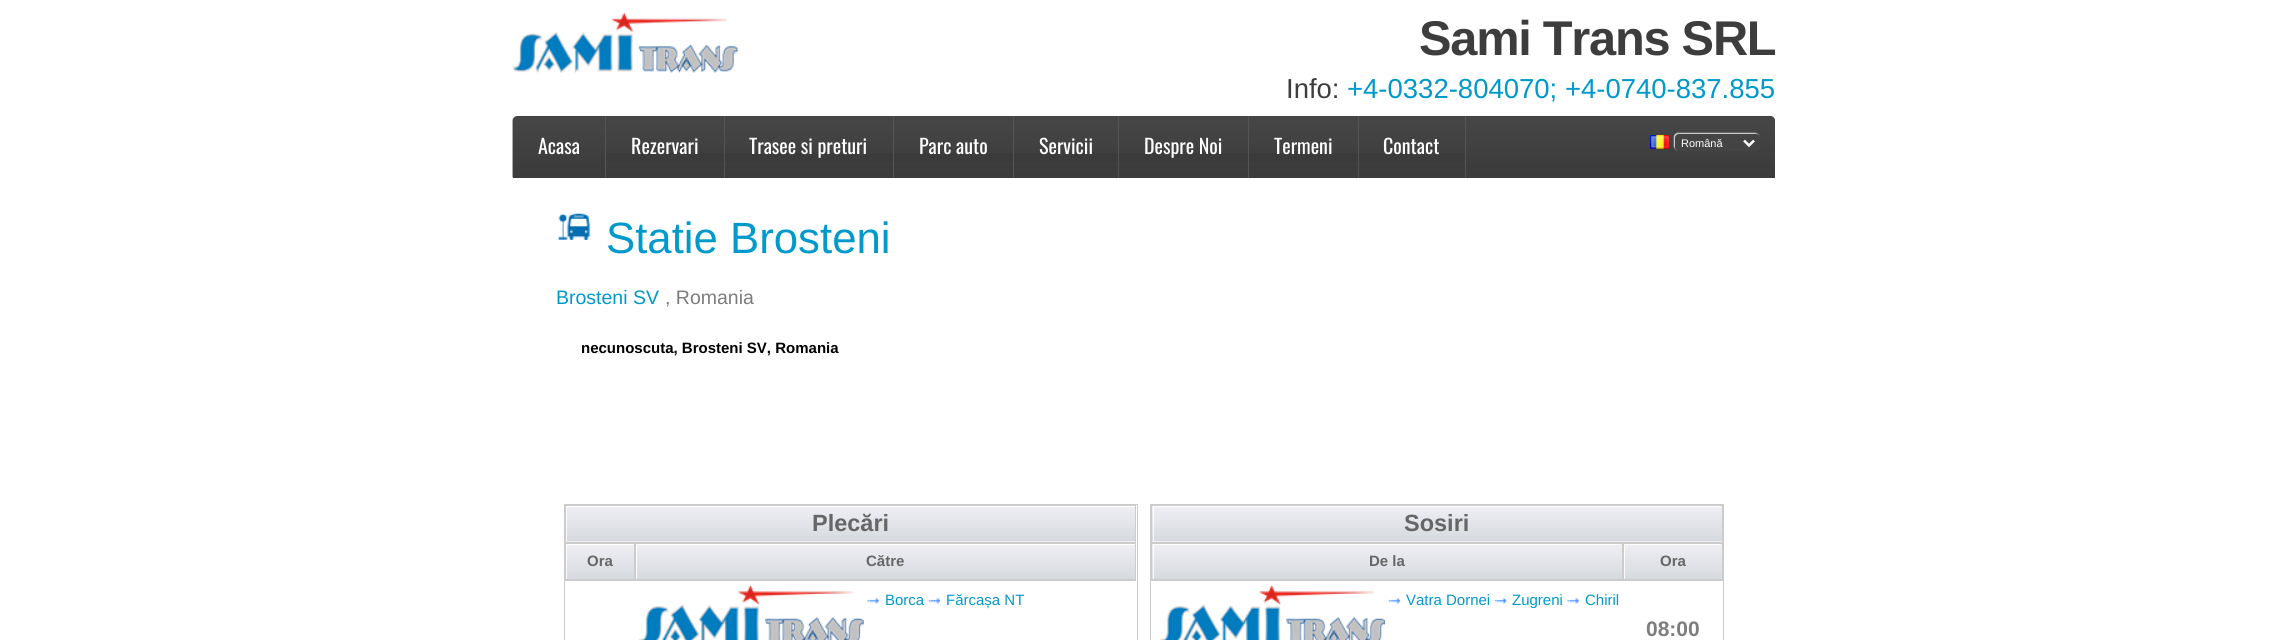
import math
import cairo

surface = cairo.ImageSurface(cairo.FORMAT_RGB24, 2287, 640)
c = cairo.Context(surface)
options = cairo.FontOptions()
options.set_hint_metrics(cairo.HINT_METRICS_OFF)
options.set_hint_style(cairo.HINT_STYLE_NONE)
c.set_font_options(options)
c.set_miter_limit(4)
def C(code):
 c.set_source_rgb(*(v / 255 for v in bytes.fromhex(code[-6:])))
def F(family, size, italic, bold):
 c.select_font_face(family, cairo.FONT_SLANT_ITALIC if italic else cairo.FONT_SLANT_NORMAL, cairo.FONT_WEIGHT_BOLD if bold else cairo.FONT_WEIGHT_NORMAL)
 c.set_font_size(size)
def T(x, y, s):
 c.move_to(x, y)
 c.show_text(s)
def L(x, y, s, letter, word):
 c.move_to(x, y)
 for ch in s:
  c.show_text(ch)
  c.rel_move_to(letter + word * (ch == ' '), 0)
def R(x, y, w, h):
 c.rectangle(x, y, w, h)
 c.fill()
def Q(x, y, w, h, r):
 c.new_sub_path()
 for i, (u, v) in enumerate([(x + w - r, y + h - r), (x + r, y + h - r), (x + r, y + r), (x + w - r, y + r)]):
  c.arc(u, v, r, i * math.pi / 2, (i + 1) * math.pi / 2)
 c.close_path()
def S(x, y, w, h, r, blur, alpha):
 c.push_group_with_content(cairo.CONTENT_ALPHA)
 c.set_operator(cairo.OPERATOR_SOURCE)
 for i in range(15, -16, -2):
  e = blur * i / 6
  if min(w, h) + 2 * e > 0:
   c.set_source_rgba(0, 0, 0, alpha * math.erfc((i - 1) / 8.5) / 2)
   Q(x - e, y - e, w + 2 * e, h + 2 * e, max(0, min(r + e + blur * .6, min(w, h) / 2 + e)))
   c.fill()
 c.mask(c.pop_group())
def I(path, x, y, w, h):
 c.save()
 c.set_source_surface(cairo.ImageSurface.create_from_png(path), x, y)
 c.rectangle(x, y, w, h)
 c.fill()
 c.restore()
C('ffffff')
c.paint()
I('1.png',512,12,226,61)
F('Liberation Sans',48.75,0,1)
C('3d3d3d')
L(1419,55,'Sami Trans SRL',-1.25,0)
F('Liberation Sans',27.5,0,0)
T(1286,98,'Info:')
C('0099cc')
T(1347,98,'+4-0332-804070; +4-0740-837.855')
C('3b3b3b')
c.new_path()
c.move_to(517,116)
c.line_to(1770,116)
c.curve_to(1773,116,1775,118,1775,121)
c.line_to(1775,178)
c.line_to(513,178)
c.line_to(513,120)
c.curve_to(513,118,515,116,517,116)
c.close_path()
c.fill()
I('2.png',512,116,1263,62)
C('ffffff')
c.new_path()
c.move_to(515.5,116)
c.line_to(606,116)
c.line_to(606,178)
c.line_to(513,178)
c.line_to(513,118.5)
c.curve_to(513,117,514,116,515.5,116)
c.close_path()
c.fill()
C('3b3b3b')
c.new_path()
c.move_to(518,116)
c.line_to(606,116)
c.line_to(606,178)
c.line_to(513,178)
c.line_to(513,121)
c.curve_to(513,118,515,116,518,116)
c.close_path()
c.fill()
I('3.png',512,116,93,62)
C('555555')
R(605,116,1,62)
F('Oswald',20,0,0)
C('ffffff')
T(538,154,'Acasa')
C('3b3b3b')
R(606,116,118,45)
I('4.png',606,116,118,37)
C('555555')
R(724,116,1,62)
C('ffffff')
T(631,154,'Rezervari')
C('3b3b3b')
R(725,116,168,45)
I('5.png',725,116,168,37)
C('555555')
R(893,116,1,62)
C('ffffff')
T(749,154,'Trasee si preturi')
C('3b3b3b')
R(894,116,119,45)
I('6.png',894,116,119,37)
C('555555')
R(1013,116,1,62)
C('ffffff')
T(919,154,'Parc auto')
C('3b3b3b')
R(1014,116,104,45)
I('7.png',1014,116,104,37)
C('555555')
R(1118,116,1,62)
C('ffffff')
T(1039,154,'Servicii')
C('3b3b3b')
R(1119,116,129,45)
I('8.png',1119,116,129,37)
C('555555')
R(1248,116,1,62)
C('ffffff')
T(1144,154,'Despre Noi')
C('3b3b3b')
R(1249,116,109,45)
I('9.png',1249,116,109,37)
C('555555')
R(1358,116,1,62)
C('ffffff')
T(1274,154,'Termeni')
C('3b3b3b')
R(1359,116,106,45)
I('10.png',1359,116,106,37)
C('555555')
R(1465,116,1,62)
C('ffffff')
T(1383,154,'Contact')
I('11.png',1650,135,20,14)
C('dbdbdb')
S(1674,133,85,17,4,.5,1)
C('444444')
Q(1675.5,134.5,84,16,3.5)
c.fill_preserve()
c.set_line_width(1)
c.stroke()
c.new_path()
c.move_to(1744,140.5)
c.line_to(1749,145.5)
c.line_to(1754,140.5)
C('ffffff')
c.set_line_width(2.5)
c.stroke()
F('Liberation Sans',11,0,0)
T(1681,147,'Română')
I('12.png',557,213,34,27)
F('Liberation Sans',43.75,0,0)
C('0099cc')
T(606,253,'Statie Brosteni')
F('Liberation Sans',19.5,0,0)
T(556,304,'Brosteni SV')
C('7d7d7d')
T(665,304,', Romania')
F('Liberation Sans',15,0,1)
C('000000')
T(581,353,'necunoscuta, Brosteni SV, Romania')
c.rectangle(564.5,504.5,573,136)
C('cccccc')
c.set_line_width(1)
c.stroke()
gradient = cairo.LinearGradient(851,506,851,541)
gradient.add_color_stop_rgba(0,0.937,0.937,0.957,1)
gradient.add_color_stop_rgba(1,0.839,0.855,0.875,1)
c.set_source(gradient)
R(567,507,568,34)
gradient = cairo.LinearGradient(851,506,851,541)
gradient.add_color_stop_rgba(0,0.992,0.992,0.992,1)
gradient.add_color_stop_rgba(1,0.976,0.976,0.98,1)
c.set_source(gradient)
R(566,506,1,35)
gradient = cairo.LinearGradient(851,541,851,576)
gradient.add_color_stop_rgba(0,0.937,0.937,0.957,1)
gradient.add_color_stop_rgba(1,0.839,0.855,0.875,1)
c.set_source(gradient)
R(565,541,571,1)
c.rectangle(565.5,505.5,570,37)
C('cccccc')
c.stroke()
F('Liberation Sans',23.5,0,1)
C('666666')
T(812,531,'Plecări')
gradient = cairo.LinearGradient(600,544,600,579)
gradient.add_color_stop_rgba(0,0.937,0.937,0.957,1)
gradient.add_color_stop_rgba(1,0.839,0.855,0.875,1)
c.set_source(gradient)
R(567,545,67,34)
gradient = cairo.LinearGradient(600,544,600,579)
gradient.add_color_stop_rgba(0,0.992,0.992,0.992,1)
gradient.add_color_stop_rgba(1,0.976,0.976,0.98,1)
c.set_source(gradient)
R(566,544,1,35)
c.rectangle(565.5,543.5,69,36)
C('cccccc')
c.stroke()
F('Liberation Sans',15,0,1)
C('666666')
T(587,566,'Ora')
gradient = cairo.LinearGradient(886,544,886,579)
gradient.add_color_stop_rgba(0,0.937,0.937,0.957,1)
gradient.add_color_stop_rgba(1,0.839,0.855,0.875,1)
c.set_source(gradient)
R(637,545,498,34)
gradient = cairo.LinearGradient(886,544,886,579)
gradient.add_color_stop_rgba(0,0.992,0.992,0.992,1)
gradient.add_color_stop_rgba(1,0.976,0.976,0.98,1)
c.set_source(gradient)
R(636,544,1,35)
c.rectangle(635.5,543.5,500,36)
C('cccccc')
c.stroke()
C('666666')
T(866,566,'Către')
C('cccccc')
R(565,580,571,1)
I('13.png',638,585,226,55)
I('14.png',867,597,12,7)
F('Liberation Sans',15,0,0)
C('0099cc')
T(885,605,'Borca')
I('15.png',928,597,12,7)
T(946,605,'Fărcașa NT')
c.rectangle(1150.5,504.5,573,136)
C('cccccc')
c.stroke()
gradient = cairo.LinearGradient(1437,506,1437,541)
gradient.add_color_stop_rgba(0,0.937,0.937,0.957,1)
gradient.add_color_stop_rgba(1,0.839,0.855,0.875,1)
c.set_source(gradient)
R(1152,506,570,35)
gradient = cairo.LinearGradient(1437,506,1437,541)
gradient.add_color_stop_rgba(0,0.992,0.992,0.992,1)
gradient.add_color_stop_rgba(1,0.976,0.976,0.98,1)
c.set_source(gradient)
R(1153,506,1,35)
gradient = cairo.LinearGradient(1437,541,1437,576)
gradient.add_color_stop_rgba(0,0.937,0.937,0.957,1)
gradient.add_color_stop_rgba(1,0.839,0.855,0.875,1)
c.set_source(gradient)
R(1151,541,572,1)
C('fdfdfd')
R(1153,506,568,1)
c.rectangle(1151.5,505.5,571,37)
C('cccccc')
c.stroke()
F('Liberation Sans',23.5,0,1)
C('666666')
T(1404,531,'Sosiri')
gradient = cairo.LinearGradient(1387,544,1387,579)
gradient.add_color_stop_rgba(0,0.937,0.937,0.957,1)
gradient.add_color_stop_rgba(1,0.839,0.855,0.875,1)
c.set_source(gradient)
R(1152,544,470,35)
gradient = cairo.LinearGradient(1387,544,1387,579)
gradient.add_color_stop_rgba(0,0.992,0.992,0.992,1)
gradient.add_color_stop_rgba(1,0.976,0.976,0.98,1)
c.set_source(gradient)
R(1153,544,1,35)
C('fdfdfd')
R(1153,544,468,1)
c.rectangle(1151.5,543.5,471,36)
C('cccccc')
c.stroke()
F('Liberation Sans',15,0,1)
C('666666')
T(1369,566,'De la')
gradient = cairo.LinearGradient(1673,544,1673,579)
gradient.add_color_stop_rgba(0,0.937,0.937,0.957,1)
gradient.add_color_stop_rgba(1,0.839,0.855,0.875,1)
c.set_source(gradient)
R(1625,544,97,35)
gradient = cairo.LinearGradient(1673,544,1673,579)
gradient.add_color_stop_rgba(0,0.992,0.992,0.992,1)
gradient.add_color_stop_rgba(1,0.976,0.976,0.98,1)
c.set_source(gradient)
R(1624,544,1,35)
C('fdfdfd')
R(1624,544,97,1)
c.rectangle(1623.5,543.5,99,36)
C('cccccc')
c.stroke()
C('666666')
T(1660,566,'Ora')
C('cccccc')
R(1151,580,572,1)
I('16.png',1160,585,225,55)
I('15.png',1388,597,12,7)
F('Liberation Sans',15,0,0)
C('0099cc')
T(1406,605,'Vatra Dornei')
I('17.png',1495,597,12,7)
T(1512,605,'Zugreni')
I('14.png',1567,597,12,7)
T(1585,605,'Chiril')
F('Liberation Sans',21,0,1)
C('7d7d7d')
T(1646,636,'08:00')
surface.write_to_png('o.png')
